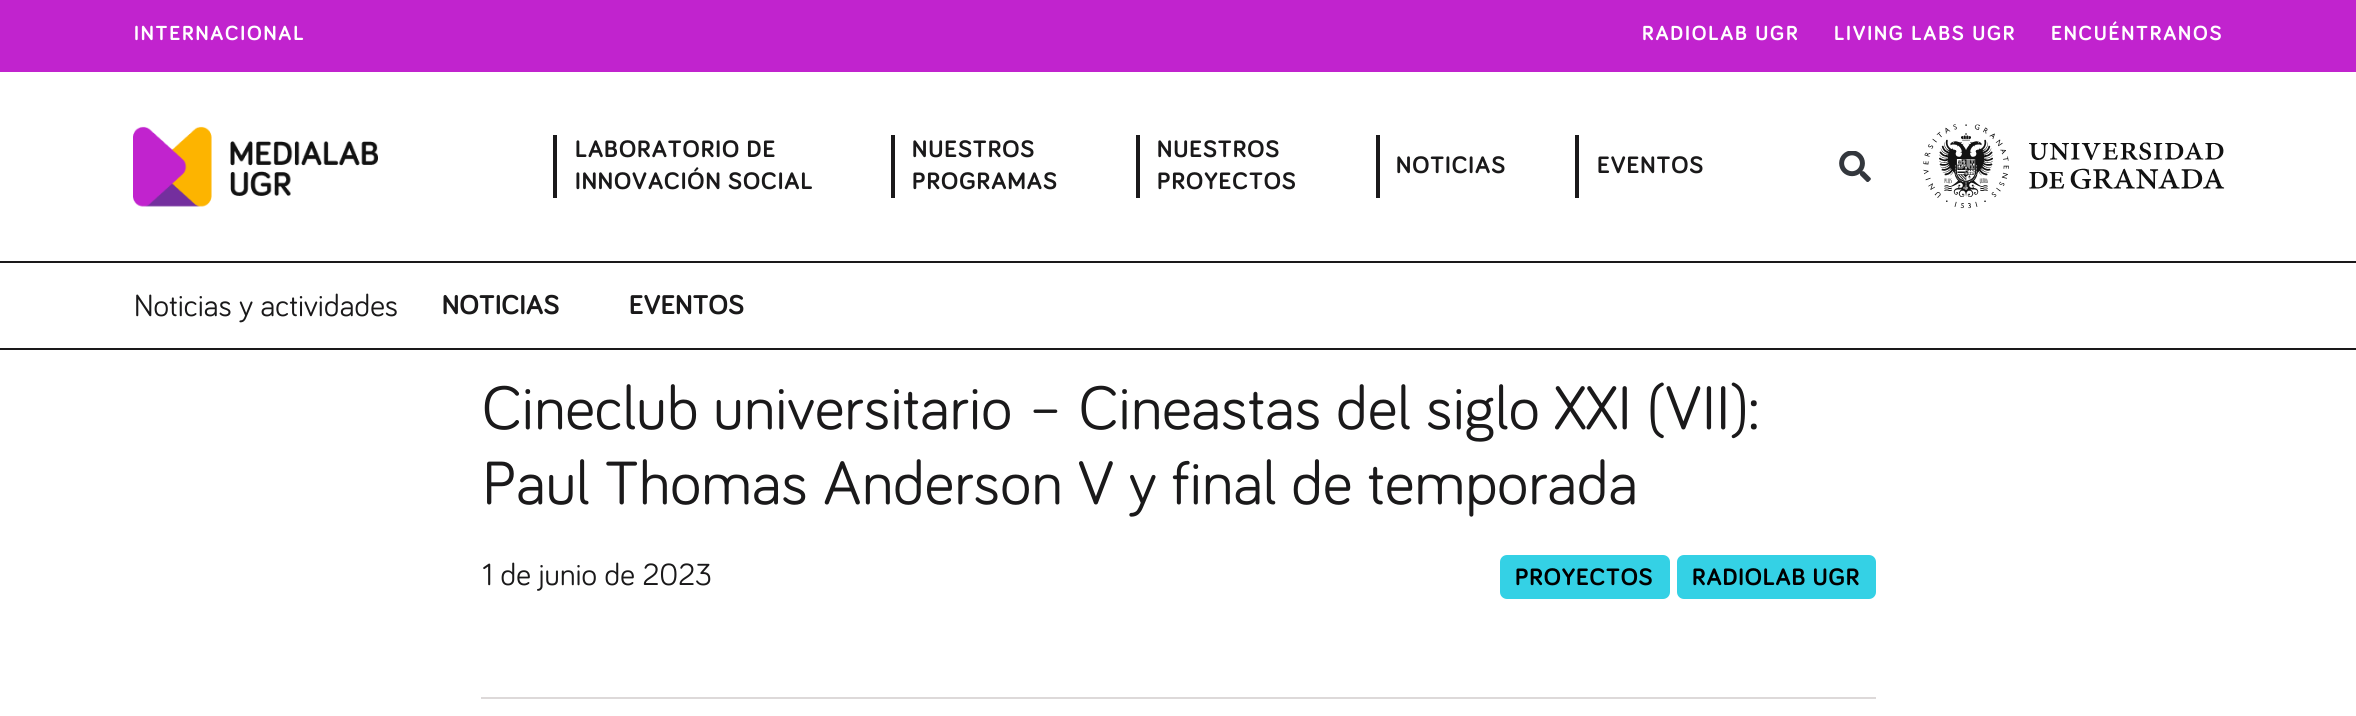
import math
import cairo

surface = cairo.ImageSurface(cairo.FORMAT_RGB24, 2356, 716)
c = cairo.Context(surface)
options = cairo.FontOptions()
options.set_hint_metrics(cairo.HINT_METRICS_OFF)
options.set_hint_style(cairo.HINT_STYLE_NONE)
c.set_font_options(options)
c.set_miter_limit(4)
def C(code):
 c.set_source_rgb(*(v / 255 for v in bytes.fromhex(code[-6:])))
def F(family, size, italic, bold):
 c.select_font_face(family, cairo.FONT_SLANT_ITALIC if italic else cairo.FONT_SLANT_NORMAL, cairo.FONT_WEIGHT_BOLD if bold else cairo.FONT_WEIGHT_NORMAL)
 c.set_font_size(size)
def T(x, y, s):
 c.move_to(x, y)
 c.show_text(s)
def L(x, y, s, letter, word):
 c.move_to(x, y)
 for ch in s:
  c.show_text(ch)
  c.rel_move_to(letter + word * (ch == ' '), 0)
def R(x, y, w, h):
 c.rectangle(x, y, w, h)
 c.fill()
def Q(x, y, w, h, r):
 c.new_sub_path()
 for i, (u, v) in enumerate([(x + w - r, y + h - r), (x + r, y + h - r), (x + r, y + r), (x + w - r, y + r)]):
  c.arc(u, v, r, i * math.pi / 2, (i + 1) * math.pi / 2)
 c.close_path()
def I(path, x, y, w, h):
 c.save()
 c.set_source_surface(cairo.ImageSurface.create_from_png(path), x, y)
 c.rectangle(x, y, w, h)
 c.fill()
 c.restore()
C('ffffff')
c.paint()
C('c123ce')
R(0,0,2356,72)
F('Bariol',21,0,1)
C('ffffff')
L(134,40,'INTERNACIONAL',1.75,0)
L(1642,40,'RADIOLAB UGR',1.75,0)
L(1834,40,'LIVING LABS UGR',1.75,0)
L(2051,40,'ENCUÉNTRANOS',1.75,0)
I('1.png',133,126,245,81)
C('1a191a')
R(553,135,4,63)
F('Bariol',24.5,0,1)
L(575,157,'LABORATORIO DE',.9,0)
L(575,189,'INNOVACIÓN SOCIAL',.9,0)
R(891,135,4,63)
L(912,157,'NUESTROS',.9,0)
L(912,189,'PROGRAMAS',.9,0)
R(1136,135,4,63)
L(1157,157,'NUESTROS',.9,0)
L(1157,189,'PROYECTOS',.9,0)
R(1376,135,4,63)
L(1396,173,'NOTICIAS',.9,0)
R(1575,135,4,63)
L(1597,173,'EVENTOS',.9,0)
I('2.png',1839,151,32,31)
I('3.png',1923,124,302,85)
R(0,261,2356,2)
R(0,348,2356,2)
F('Bariol',31.5,0,0)
T(134,316,'Noticias y actividades')
F('Bariol',28,0,1)
T(442,314,'NOTICIAS')
T(629,314,'EVENTOS')
F('Bariol',63,0,0)
T(482,429,'Cineclub universitario – Cineastas del siglo XXI (VII):')
T(482,504,'Paul Thomas Anderson V y final de temporada')
F('Bariol',31.5,0,0)
T(482,585,'1 de junio de 2023')
C('34d1e5')
Q(1500,555,170,44,7)
c.fill()
F('Bariol',24.5,0,1)
C('000000')
L(1515,585,'PROYECTOS',.75,0)
C('34d1e5')
Q(1677,555,199,44,7)
c.fill()
C('000000')
L(1692,585,'RADIOLAB UGR',.75,0)
C('ddd9d9')
R(481,697,1395,2)
surface.write_to_png('o.png')
